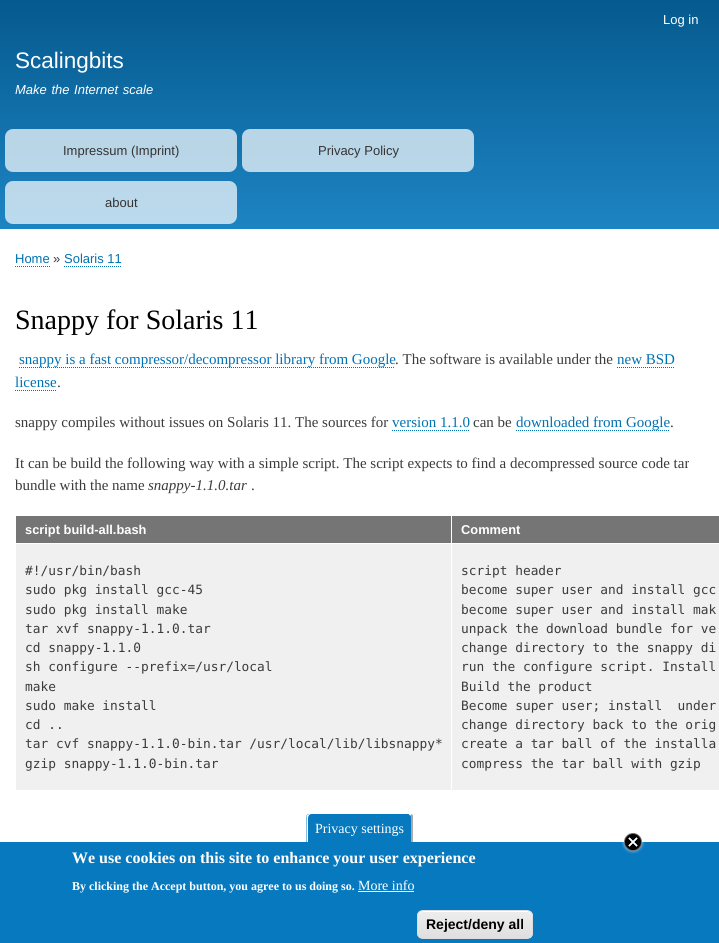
import math
import cairo

surface = cairo.ImageSurface(cairo.FORMAT_RGB24, 719, 943)
c = cairo.Context(surface)
options = cairo.FontOptions()
options.set_hint_metrics(cairo.HINT_METRICS_OFF)
options.set_hint_style(cairo.HINT_STYLE_NONE)
c.set_font_options(options)
c.set_miter_limit(4)
def C(code):
 c.set_source_rgb(*(v / 255 for v in bytes.fromhex(code[-6:])))
def F(family, size, italic, bold):
 c.select_font_face(family, cairo.FONT_SLANT_ITALIC if italic else cairo.FONT_SLANT_NORMAL, cairo.FONT_WEIGHT_BOLD if bold else cairo.FONT_WEIGHT_NORMAL)
 c.set_font_size(size)
def T(x, y, s):
 c.move_to(x, y)
 c.show_text(s)
def L(x, y, s, letter, word):
 c.move_to(x, y)
 for ch in s:
  c.show_text(ch)
  c.rel_move_to(letter + word * (ch == ' '), 0)
def R(x, y, w, h):
 c.rectangle(x, y, w, h)
 c.fill()
def Q(x, y, w, h, r):
 c.new_sub_path()
 for i, (u, v) in enumerate([(x + w - r, y + h - r), (x + r, y + h - r), (x + r, y + r), (x + w - r, y + r)]):
  c.arc(u, v, r, i * math.pi / 2, (i + 1) * math.pi / 2)
 c.close_path()
def I(path, x, y, w, h):
 c.save()
 c.set_source_surface(cairo.ImageSurface.create_from_png(path), x, y)
 c.rectangle(x, y, w, h)
 c.fill()
 c.restore()
C('ffffff')
c.paint()
gradient = cairo.LinearGradient(360,0,360,229)
gradient.add_color_stop_rgba(0,0.02,0.353,0.557,1)
gradient.add_color_stop_rgba(1,0.114,0.518,0.765,1)
c.set_source(gradient)
R(0,0,719,229)
F('Liberation Sans',13,0,0)
C('ffffff')
T(663,24,'Log in')
F('Liberation Sans',22.5,0,0)
T(15,68,'Scalingbits')
F('Liberation Sans',13,1,0)
L(15,94,'Make the Internet scale',0,1)
c.set_source_rgba(1,1,1,0.7)
Q(5,129,232,43,8)
c.fill()
F('Liberation Sans',13,0,0)
C('333333')
T(63,155,'Impressum (Imprint)')
c.set_source_rgba(1,1,1,0.7)
Q(242,129,232,43,8)
c.fill()
C('333333')
T(318,155,'Privacy Policy')
c.set_source_rgba(1,1,1,0.7)
Q(5,181,232,43,8)
c.fill()
C('333333')
T(105,207,'about')
C('0071b3')
T(15,263,'Home')
c.new_path()
c.move_to(15,266.5)
c.line_to(50,266.5)
c.set_line_width(1)
c.set_dash([1,1])
c.stroke()
C('3b3b3b')
T(53,263,'»')
c.new_path()
c.move_to(64,266.5)
c.line_to(122,266.5)
C('0071b3')
c.stroke()
T(64,263,'Solaris 11')
F('Liberation Serif',28,0,0)
C('000000')
T(15,329,'Snappy for Solaris 11')
c.new_path()
c.move_to(19,367.5)
c.line_to(395,367.5)
C('0071b3')
c.stroke()
F('Liberation Serif',15,0,0)
T(19,364,'snappy is a fast compressor/decompressor library from Google')
C('3b3b3b')
T(395,364,'. The software is available under the')
C('0071b3')
T(617,364,'new BSD')
c.new_path()
c.move_to(617,367.5)
c.line_to(675,367.5)
c.stroke()
T(15,387,'license')
c.new_path()
c.move_to(15,390.5)
c.line_to(57,390.5)
c.stroke()
C('3b3b3b')
T(57,387,'.')
T(15,427,'snappy compiles without issues on Solaris 11. The sources for')
C('0071b3')
T(392,427,'version 1.1.0')
c.new_path()
c.move_to(392,430.5)
c.line_to(469,430.5)
c.stroke()
C('3b3b3b')
T(473,427,'can be')
c.new_path()
c.move_to(516,430.5)
c.line_to(670,430.5)
C('0071b3')
c.stroke()
T(516,427,'downloaded from Google')
C('3b3b3b')
T(670,427,'.')
T(15,468,'It can be build the following way with a simple script. The script expects to find a decompressed source code tar')
T(15,490,'bundle with the name')
F('Liberation Serif',15,1,0)
T(148,490,'snappy-1.1.0.tar')
F('Liberation Serif',15,0,0)
T(251,490,'.')
C('757575')
R(16,516,435,27)
F('Liberation Sans',12.85,0,1)
C('ffffff')
T(25,534,'script build-all.bash')
C('757575')
R(452,516,267,27)
C('ffffff')
T(461,534,'Comment')
C('f0f0f0')
R(16,544,703,246)
F('DejaVu Sans Mono',12.85,0,0)
C('3b3b3b')
T(25,575,'#!/usr/bin/bash')
T(25,594,'sudo pkg install gcc-45')
T(25,614,'sudo pkg install make')
T(25,633,'tar xvf snappy-1.1.0.tar')
T(25,652,'cd snappy-1.1.0')
T(25,671,'sh configure --prefix=/usr/local')
T(25,691,'make')
T(25,710,'sudo make install')
T(25,729,'cd ..')
T(25,748,'tar cvf snappy-1.1.0-bin.tar /usr/local/lib/libsnappy*')
T(25,768,'gzip snappy-1.1.0-bin.tar')
C('ffffff')
R(451,543,1,248)
C('3b3b3b')
T(461,575,'script header')
T(461,594,'become super user and install gcc')
T(461,614,'become super user and install mak')
T(461,633,'unpack the download bundle for ve')
T(461,652,'change directory to the snappy di')
T(461,671,'run the configure script. Install')
T(461,691,'Build the product')
T(461,710,'Become super user; install  under')
T(461,729,'change directory back to the orig')
T(461,748,'create a tar ball of the installa')
T(461,768,'compress the tar ball with gzip')
C('0779bf')
R(0,842,719,101)
c.new_path()
c.move_to(311,813)
c.line_to(408,813)
c.curve_to(411,813,413,815,413,818)
c.line_to(413,843)
c.line_to(306,843)
c.line_to(306,818)
c.curve_to(306,815,308,813,311,813)
c.close_path()
c.fill()
C('ffffff')
c.new_path()
c.move_to(311,814)
c.line_to(309,815)
c.line_to(308,814)
c.line_to(309,812)
c.line_to(410,812)
c.line_to(412,814)
c.line_to(410,816)
c.curve_to(410,815,409,814,408,814)
c.close_path()
c.fill()
C('aaaaaa')
c.new_path()
c.move_to(412,814)
c.line_to(410.5,815.5)
c.curve_to(411,816.5,411,817,411,818)
c.line_to(411,842)
c.line_to(413,842)
c.line_to(413,818)
c.curve_to(413,816.5,412.5,815,412,814)
c.close_path()
c.fill()
C('ffffff')
c.new_path()
c.move_to(306.5,816)
c.line_to(308,814)
c.line_to(309,815)
c.curve_to(308.5,816,308,817,308,818)
c.line_to(308,842)
c.line_to(306.5,842)
c.close_path()
c.fill()
F('Liberation Serif',14,0,0)
T(315,833,'Privacy settings')
I('1.png',621,833,24,21)
F('Liberation Serif',16,0,1)
T(72,863,'We use cookies on this site to enhance your user experience')
F('Liberation Serif',12,0,1)
T(72,890,'By clicking the Accept button, you agree to us doing so.')
F('Liberation Serif',14,0,0)
T(358,890,'More info')
R(358,891,56,1)
c.save()
Q(417,910,116,29,6)
c.clip()
gradient = cairo.LinearGradient(475,911,475,938)
gradient.add_color_stop_rgba(.05,0.929,0.929,0.929,1)
gradient.add_color_stop_rgba(1,0.875,0.875,0.875,1)
c.set_source(gradient)
R(417,911,116,27)
c.restore()
c.new_path()
c.move_to(423,912)
c.line_to(527,912)
c.curve_to(530,912,532,914,532,917)
c.curve_to(532,907,514,911,510,911)
c.line_to(440,911)
c.curve_to(436,911,418,907,418,917)
c.curve_to(418,914,420,912,423,912)
c.close_path()
c.fill()
Q(417.5,910.5,115,28,5.5)
C('dcdcdc')
c.set_dash([])
c.stroke()
F('Liberation Sans',14,0,1)
C('000000')
T(426,929,'Reject/deny all')
surface.write_to_png('o.png')
